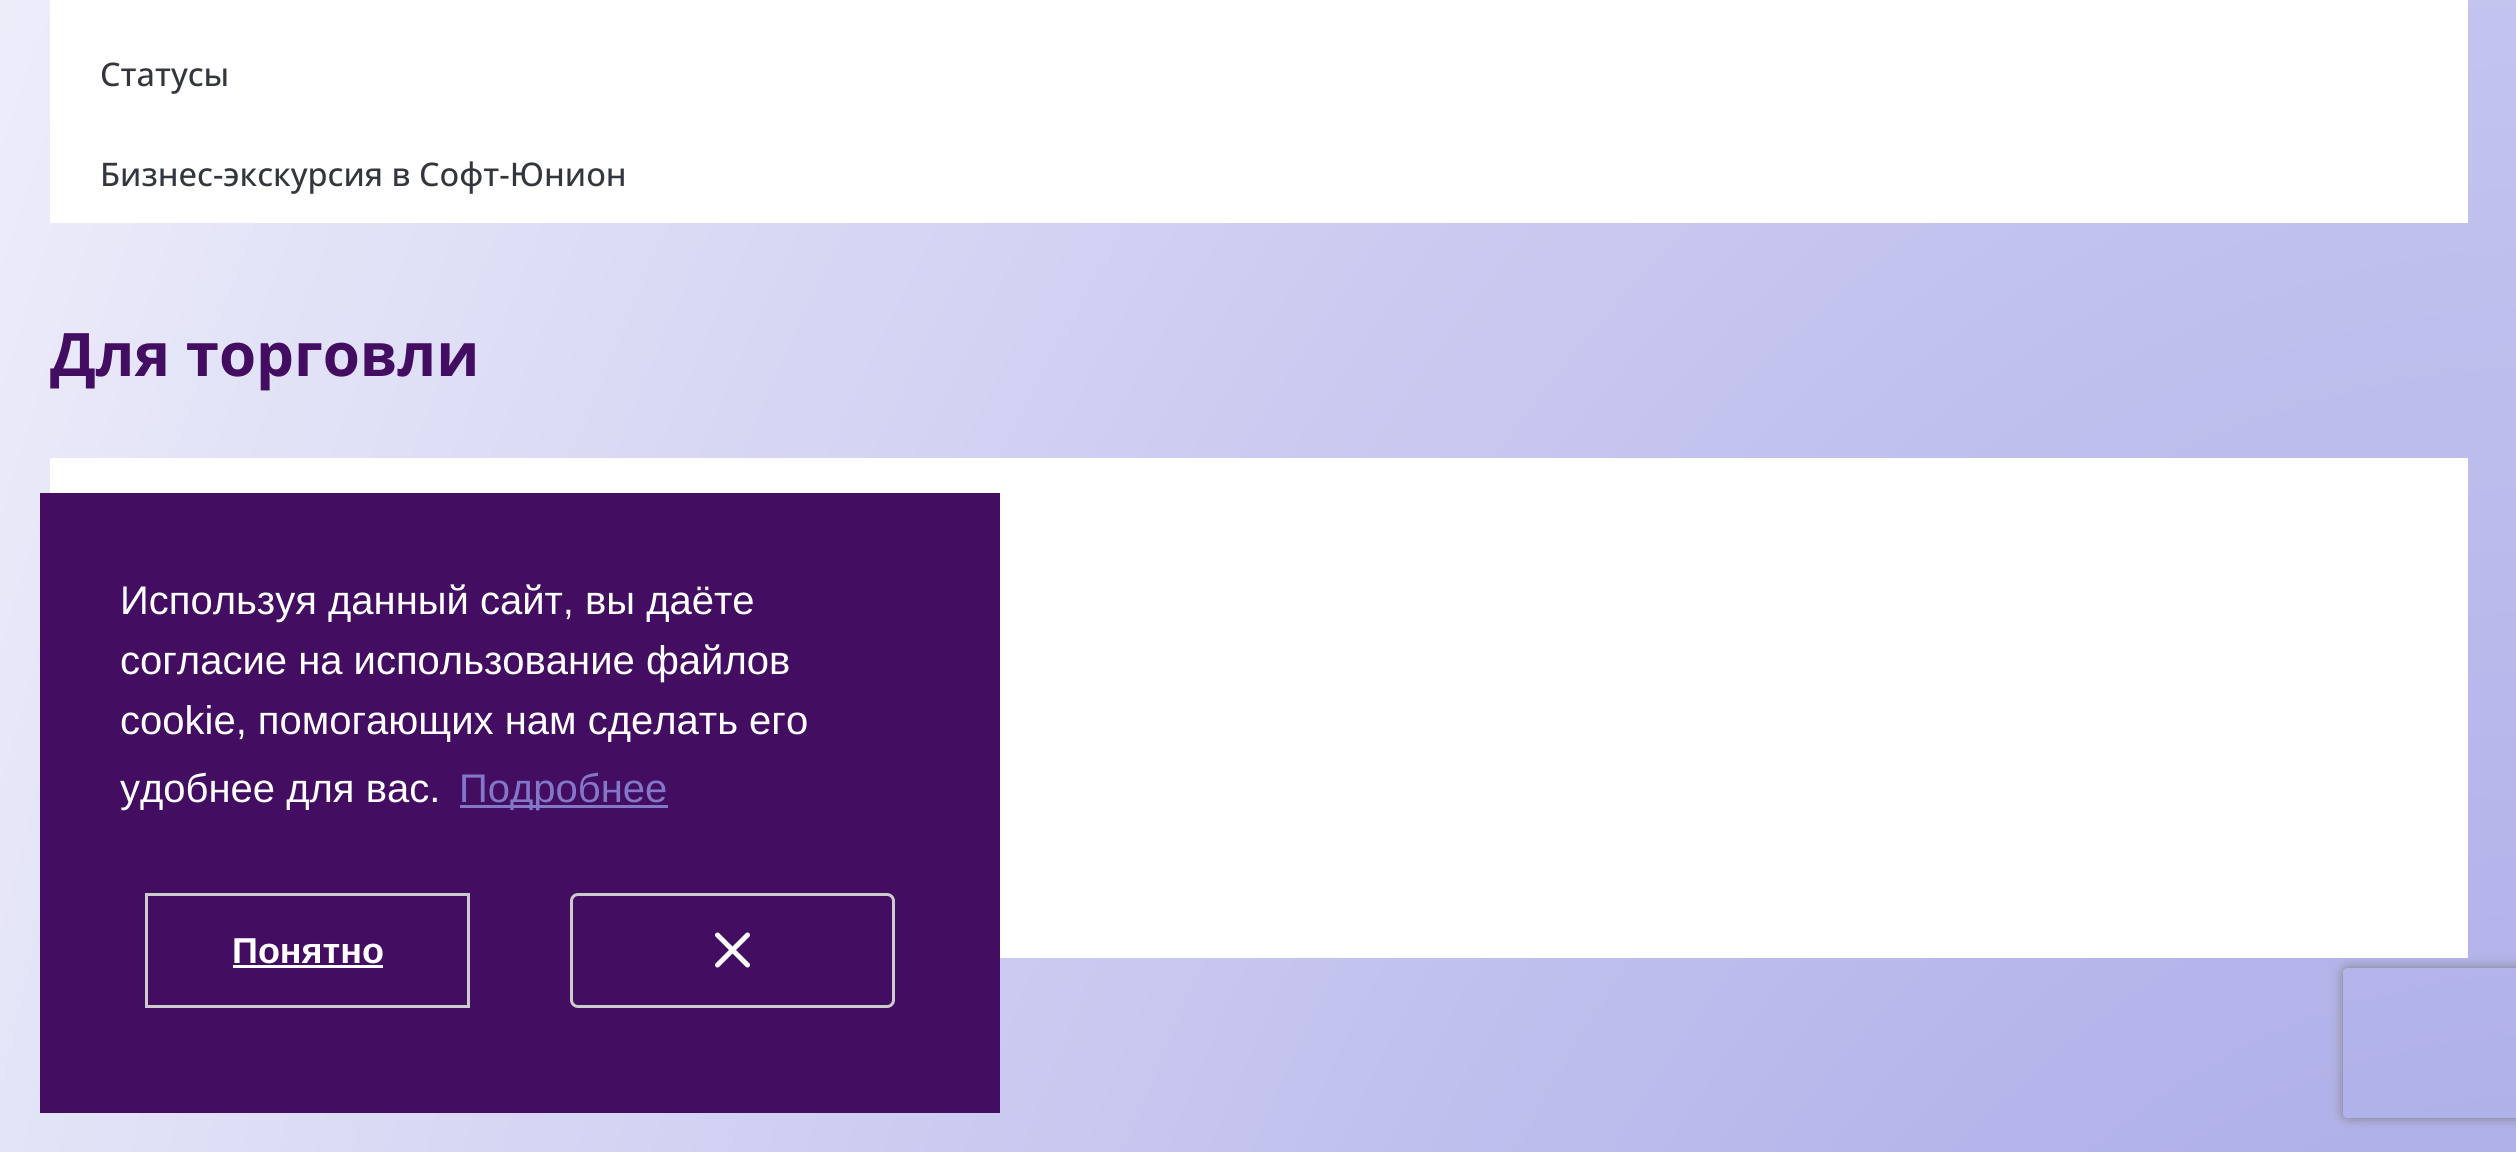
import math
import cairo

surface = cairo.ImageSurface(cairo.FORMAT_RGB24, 2516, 1152)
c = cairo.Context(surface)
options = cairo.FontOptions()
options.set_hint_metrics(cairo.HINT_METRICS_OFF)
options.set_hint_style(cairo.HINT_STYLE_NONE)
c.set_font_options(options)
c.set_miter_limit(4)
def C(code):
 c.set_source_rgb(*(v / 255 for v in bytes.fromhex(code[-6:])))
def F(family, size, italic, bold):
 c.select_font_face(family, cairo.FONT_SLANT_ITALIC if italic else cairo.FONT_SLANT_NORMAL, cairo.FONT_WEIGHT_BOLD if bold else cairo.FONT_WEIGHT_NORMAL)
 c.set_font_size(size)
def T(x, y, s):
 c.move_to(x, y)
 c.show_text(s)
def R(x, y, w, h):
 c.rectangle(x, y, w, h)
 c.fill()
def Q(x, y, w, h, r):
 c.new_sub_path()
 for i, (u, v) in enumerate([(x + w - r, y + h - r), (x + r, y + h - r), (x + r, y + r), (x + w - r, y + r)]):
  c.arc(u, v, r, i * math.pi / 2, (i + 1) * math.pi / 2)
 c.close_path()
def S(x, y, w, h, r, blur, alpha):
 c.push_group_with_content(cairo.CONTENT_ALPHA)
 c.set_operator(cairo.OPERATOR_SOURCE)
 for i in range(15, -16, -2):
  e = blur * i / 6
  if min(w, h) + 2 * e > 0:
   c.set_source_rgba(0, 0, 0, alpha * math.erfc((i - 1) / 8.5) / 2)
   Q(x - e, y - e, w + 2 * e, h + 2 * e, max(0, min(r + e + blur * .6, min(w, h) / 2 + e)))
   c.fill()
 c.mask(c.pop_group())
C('ffffff')
c.paint()
gradient = cairo.RadialGradient(0,0,0,0,0,1)
gradient.set_matrix(cairo.Matrix(1 / 3560, 0, 0, 1 / 6322, -1 * 2518 / 3560, -1 * 2868 / 6322))
gradient.add_color_stop_rgba(0,0.576,0.576,0.886,1)
gradient.add_color_stop_rgba(1,1,1,1,1)
c.set_source(gradient)
R(0,0,2516,1152)
C('ffffff')
R(50,0,2418,223)
F('Open Sans Medium',32.5,0,0)
C('33373d')
T(100,86,'Статусы')
T(100,186,'Бизнес-экскурсия в Софт-Юнион')
F('Open Sans',60,0,1)
C('430d62')
T(50,376,'Для торговли')
c.save()
c.set_fill_rule(cairo.FILL_RULE_EVEN_ODD)
c.new_path()
c.move_to(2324,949)
c.line_to(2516,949)
c.line_to(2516,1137)
c.line_to(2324,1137)
c.close_path()
c.move_to(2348,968)
c.line_to(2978,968)
c.curve_to(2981,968,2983,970,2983,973)
c.line_to(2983,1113)
c.curve_to(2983,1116,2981,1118,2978,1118)
c.line_to(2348,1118)
c.curve_to(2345,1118,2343,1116,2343,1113)
c.line_to(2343,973)
c.curve_to(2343,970,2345,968,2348,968)
c.close_path()
c.clip()
C('808080')
S(2343,968,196,150,5,6,1)
c.restore()
C('ffffff')
R(50,458,2418,500)
C('430d62')
R(40,493,960,620)
F('Liberation Sans',40,0,0)
C('ffffff')
T(120,614,'Используя данный сайт, вы даёте')
T(120,674,'согласие на использование файлов')
T(120,734,'cookie, помогающих нам сделать его')
T(120,802,'удобнее для вас.')
C('8378c8')
R(460,805,208,3)
T(459,802,'Подробнее')
c.rectangle(146.5,894.5,322,112)
C('cccccc')
c.set_line_width(3)
c.stroke()
F('Liberation Sans',36,0,1)
C('ffffff')
T(232,963,'Понятно')
R(233,965,150,3)
Q(571.5,894.5,322,112,6.5)
C('cccccc')
c.stroke()
c.new_path()
c.move_to(717.5,965)
c.line_to(747.5,935)
c.move_to(747.5,965)
c.line_to(717.5,935)
C('ffffff')
c.set_line_width(5)
c.set_line_cap(cairo.LINE_CAP_ROUND)
c.set_line_join(cairo.LINE_JOIN_ROUND)
c.stroke()
surface.write_to_png('o.png')
